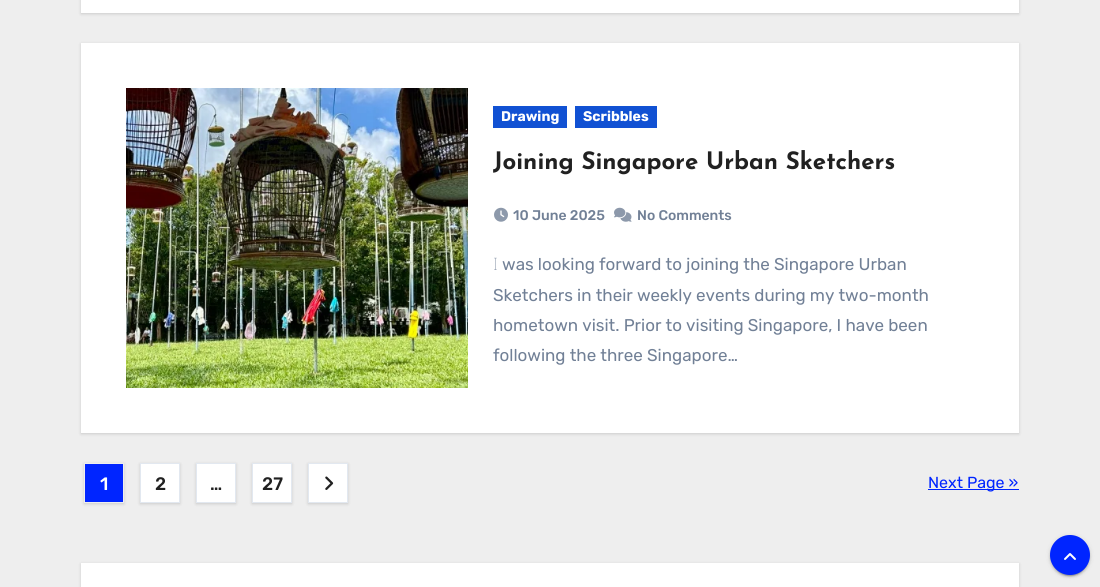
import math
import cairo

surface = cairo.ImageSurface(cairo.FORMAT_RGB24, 1100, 587)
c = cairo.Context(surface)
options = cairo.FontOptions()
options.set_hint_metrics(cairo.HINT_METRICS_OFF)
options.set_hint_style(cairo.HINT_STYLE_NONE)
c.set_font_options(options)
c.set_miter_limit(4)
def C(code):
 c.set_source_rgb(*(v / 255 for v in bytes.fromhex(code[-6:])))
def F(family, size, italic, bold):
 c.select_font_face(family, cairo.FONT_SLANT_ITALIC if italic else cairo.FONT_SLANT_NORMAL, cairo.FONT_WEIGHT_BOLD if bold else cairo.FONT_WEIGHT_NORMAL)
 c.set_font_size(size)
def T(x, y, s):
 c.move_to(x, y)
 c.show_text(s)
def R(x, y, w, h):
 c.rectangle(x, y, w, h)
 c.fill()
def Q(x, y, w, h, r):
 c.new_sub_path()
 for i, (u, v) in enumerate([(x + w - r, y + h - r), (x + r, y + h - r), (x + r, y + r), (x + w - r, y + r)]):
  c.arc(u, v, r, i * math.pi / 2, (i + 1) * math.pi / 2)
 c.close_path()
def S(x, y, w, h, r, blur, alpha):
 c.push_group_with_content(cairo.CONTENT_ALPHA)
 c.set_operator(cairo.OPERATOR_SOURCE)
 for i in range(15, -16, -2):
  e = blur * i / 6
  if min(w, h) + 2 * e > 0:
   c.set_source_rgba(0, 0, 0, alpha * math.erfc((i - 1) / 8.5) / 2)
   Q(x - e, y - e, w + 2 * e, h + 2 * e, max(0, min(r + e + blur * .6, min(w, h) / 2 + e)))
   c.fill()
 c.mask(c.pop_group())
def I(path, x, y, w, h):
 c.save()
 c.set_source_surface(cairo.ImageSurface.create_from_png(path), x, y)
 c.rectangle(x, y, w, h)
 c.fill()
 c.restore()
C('eeeeee')
c.paint()
C('000000')
S(81,-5,938,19,0,1.5,.15)
C('ffffff')
R(81,0,938,13)
C('000000')
S(81,44,938,390,0,1.5,.15)
C('ffffff')
R(81,43,938,390)
I('1.png',126,88,342,300)
C('1151d3')
R(493,106,74,22)
F('Rubik',14,0,1)
C('ffffff')
T(501,121,'Drawing')
C('1151d3')
R(575,106,82,22)
C('ffffff')
T(583,121,'Scribbles')
F('Josefin Sans',24,0,1)
C('212121')
T(493,169,'Joining Singapore Urban Sketchers')
I('2.png',494,207,14,15)
F('Rubik Medium',14,0,0)
C('718096')
T(513,220,'10 June 2025')
I('3.png',614,207,18,15)
T(637,220,'No Comments')
F('Noto Sans Thin',17,0,0)
T(493,270,'I')
F('Rubik Light',17,0,0)
T(502,270,'was looking forward to joining the Singapore Urban')
T(493,301,'Sketchers in their weekly events during my two-month')
T(493,331,'hometown visit. Prior to visiting Singapore, I have been')
T(493,361,'following the three Singapore…')
C('000000')
S(84,464,40,40,0,1.5,.15)
C('0025ff')
c.rectangle(84.5,463.5,39,39)
c.fill_preserve()
C('eeeeee')
c.set_line_width(1)
c.stroke()
F('Rubik Medium',18,0,0)
C('ffffff')
T(100,490,'1')
C('000000')
S(140,464,40,40,0,1.5,.15)
C('ffffff')
c.rectangle(140.5,463.5,39,39)
c.fill_preserve()
C('e2e8f0')
c.stroke()
C('212121')
T(155,490,'2')
C('000000')
S(196,464,40,40,0,1.5,.15)
C('ffffff')
c.rectangle(196.5,463.5,39,39)
c.fill_preserve()
C('e2e8f0')
c.stroke()
C('212121')
T(210,490,'…')
C('000000')
S(252,464,40,40,0,1.5,.15)
C('ffffff')
c.rectangle(252.5,463.5,39,39)
c.fill_preserve()
C('e2e8f0')
c.stroke()
C('212121')
T(262,490,'27')
C('000000')
S(308,464,40,40,0,1.5,.15)
C('ffffff')
c.rectangle(308.5,463.5,39,39)
c.fill_preserve()
C('e2e8f0')
c.stroke()
I('4.png',325,476,9,14)
C('0025ff')
R(928,489,91,1)
F('Rubik Light',16,0,0)
T(928,488,'Next Page »')
C('000000')
S(81,564,938,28,0,1.5,.15)
C('ffffff')
R(81,563,938,24)
C('000000')
S(1050,536,40,40,20,2.5,.12)
S(1052,540,36,36,18,.5,.2)
S(1050,537,40,40,20,1,.14)
C('0025ff')
c.arc(1070,555,19,0,2 * math.pi)
c.fill_preserve()
c.set_line_width(2)
c.stroke()
I('5.png',1064,553,12,7)
surface.write_to_png('o.png')
